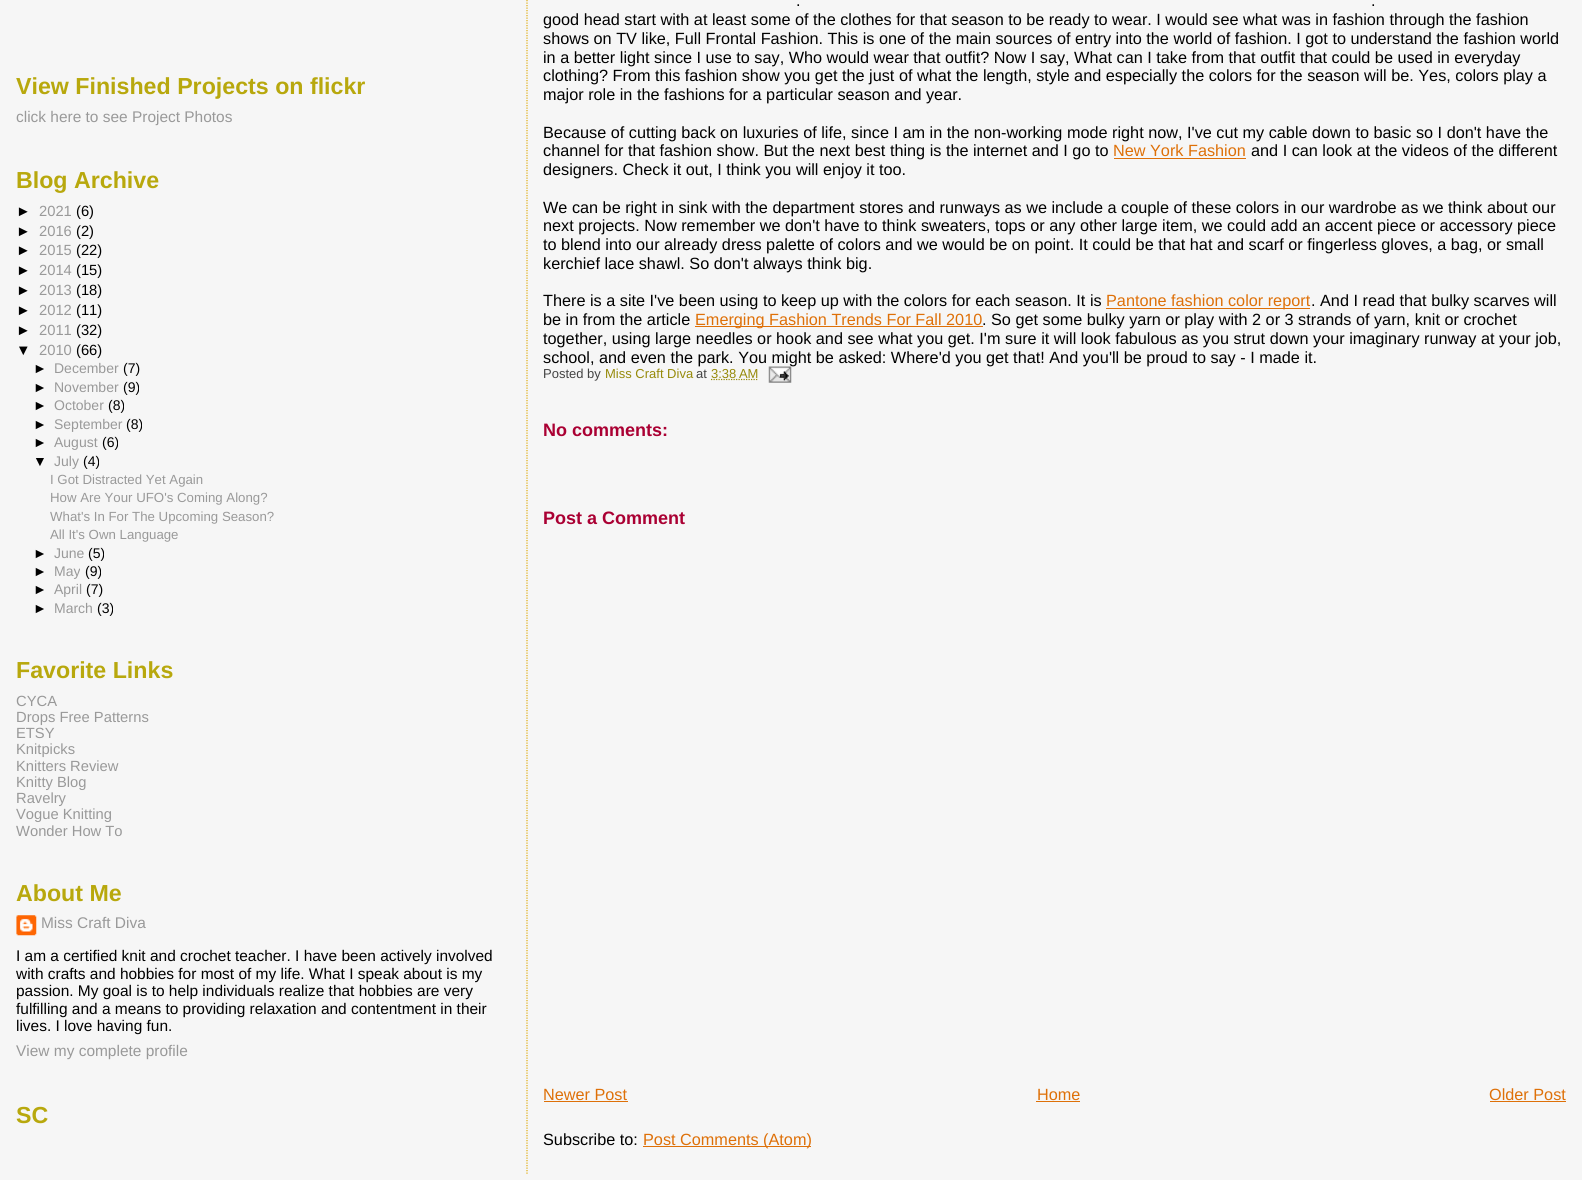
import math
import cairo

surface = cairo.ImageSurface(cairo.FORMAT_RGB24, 1582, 1180)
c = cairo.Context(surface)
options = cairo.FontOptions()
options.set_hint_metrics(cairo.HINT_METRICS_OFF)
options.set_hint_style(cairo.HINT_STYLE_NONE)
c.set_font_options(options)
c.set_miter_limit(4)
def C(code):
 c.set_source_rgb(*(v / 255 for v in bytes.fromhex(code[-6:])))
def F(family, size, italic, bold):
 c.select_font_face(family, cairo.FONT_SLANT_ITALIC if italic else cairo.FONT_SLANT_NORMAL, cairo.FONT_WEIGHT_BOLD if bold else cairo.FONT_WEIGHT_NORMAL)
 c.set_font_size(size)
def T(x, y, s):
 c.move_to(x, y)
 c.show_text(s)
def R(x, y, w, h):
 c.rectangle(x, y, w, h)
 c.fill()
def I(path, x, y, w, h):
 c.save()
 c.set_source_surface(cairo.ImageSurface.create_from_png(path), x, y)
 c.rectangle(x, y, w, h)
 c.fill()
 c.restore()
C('f6f6f6')
c.paint()
F('Liberation Sans',23.2,0,1)
C('b8a80d')
T(16,94,'View Finished Projects on flickr')
F('Liberation Sans',15.45,0,0)
C('999999')
T(16,122,'click here to see Project Photos')
F('Liberation Sans',23.2,0,1)
C('b8a80d')
T(16,188,'Blog Archive')
F('Liberation Sans',14.75,0,0)
C('000000')
T(16,216,'►')
C('999999')
T(39,216,'2021')
C('000000')
T(76,216,'(6)')
T(16,236,'►')
C('999999')
T(39,236,'2016')
C('000000')
T(76,236,'(2)')
T(16,255,'►')
C('999999')
T(39,255,'2015')
C('000000')
T(76,255,'(22)')
T(16,275,'►')
C('999999')
T(39,275,'2014')
C('000000')
T(76,275,'(15)')
T(16,295,'►')
C('999999')
T(39,295,'2013')
C('000000')
T(76,295,'(18)')
T(16,315,'►')
C('999999')
T(39,315,'2012')
C('000000')
T(76,315,'(11)')
T(16,335,'►')
C('999999')
T(39,335,'2011')
C('000000')
T(76,335,'(32)')
T(16,355,'▼')
C('999999')
T(39,355,'2010')
C('000000')
T(76,355,'(66)')
F('Liberation Sans',14,0,0)
T(33,373,'►')
C('999999')
T(54,373,'December')
C('000000')
T(123,373,'(7)')
T(33,392,'►')
C('999999')
T(54,392,'November')
C('000000')
T(123,392,'(9)')
T(33,410,'►')
C('999999')
T(54,410,'October')
C('000000')
T(108,410,'(8)')
T(33,429,'►')
C('999999')
T(54,429,'September')
C('000000')
T(126,429,'(8)')
T(33,447,'►')
C('999999')
T(54,447,'August')
C('000000')
T(102,447,'(6)')
T(33,466,'▼')
C('999999')
T(54,466,'July')
C('000000')
T(83,466,'(4)')
F('Liberation Sans',13.25,0,0)
C('999999')
T(50,484,'I Got Distracted Yet Again')
T(50,502,'How Are Your UFO\'s Coming Along?')
T(50,521,'What\'s In For The Upcoming Season?')
T(50,539,'All It\'s Own Language')
F('Liberation Sans',14,0,0)
C('000000')
T(33,558,'►')
C('999999')
T(54,558,'June')
C('000000')
T(88,558,'(5)')
T(33,576,'►')
C('999999')
T(54,576,'May')
C('000000')
T(85,576,'(9)')
T(33,594,'►')
C('999999')
T(54,594,'April')
C('000000')
T(86,594,'(7)')
T(33,613,'►')
C('999999')
T(54,613,'March')
C('000000')
T(97,613,'(3)')
F('Liberation Sans',23.2,0,1)
C('b8a80d')
T(16,678,'Favorite Links')
F('Liberation Sans',14.75,0,0)
C('999999')
T(16,706,'CYCA')
T(16,722,'Drops Free Patterns')
T(16,738,'ETSY')
T(16,754,'Knitpicks')
T(16,771,'Knitters Review')
T(16,787,'Knitty Blog')
T(16,803,'Ravelry')
T(16,819,'Vogue Knitting')
T(16,836,'Wonder How To')
F('Liberation Sans',23.2,0,1)
C('b8a80d')
T(16,901,'About Me')
I('1.png',16,915,21,21)
F('Liberation Sans',15.45,0,0)
C('999999')
T(41,928,'Miss Craft Diva')
C('000000')
T(16,961,'I am a certified knit and crochet teacher. I have been actively involved')
T(16,979,'with crafts and hobbies for most of my life. What I speak about is my')
T(16,996,'passion. My goal is to help individuals realize that hobbies are very')
T(16,1014,'fulfilling and a means to providing relaxation and contentment in their')
T(16,1031,'lives. I love having fun.')
C('999999')
T(16,1056,'View my complete profile')
F('Liberation Sans',23.2,0,1)
C('b8a80d')
T(16,1123,'SC')
c.new_path()
c.move_to(527,-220)
c.line_to(527,1174)
C('e0ad12')
c.set_line_width(1.2)
c.set_dash([1.25,1.25])
c.stroke()
F('Liberation Sans',16.25,0,0)
C('000000')
T(796,6,'.')
T(1371,6,'.')
T(543,25,'good head start with at least some of the clothes for that season to be ready to wear. I would see what was in fashion through the fashion')
T(543,44,'shows on TV like, Full Frontal Fashion. This is one of the main sources of entry into the world of fashion. I got to understand the fashion world')
T(543,63,'in a better light since I use to say, Who would wear that outfit? Now I say, What can I take from that outfit that could be used in everyday')
T(543,81,'clothing? From this fashion show you get the just of what the length, style and especially the colors for the season will be. Yes, colors play a')
T(543,100,'major role in the fashions for a particular season and year.')
T(543,138,'Because of cutting back on luxuries of life, since I am in the non-working mode right now, I\'ve cut my cable down to basic so I don\'t have the')
T(543,156,'channel for that fashion show. But the next best thing is the internet and I go to')
C('de7008')
T(1113,156,'New York Fashion')
R(1114,158,132,1)
C('000000')
T(1251,156,'and I can look at the videos of the different')
T(543,175,'designers. Check it out, I think you will enjoy it too.')
T(543,213,'We can be right in sink with the department stores and runways as we include a couple of these colors in our wardrobe as we think about our')
T(543,231,'next projects. Now remember we don\'t have to think sweaters, tops or any other large item, we could add an accent piece or accessory piece')
T(543,250,'to blend into our already dress palette of colors and we would be on point. It could be that hat and scarf or fingerless gloves, a bag, or small')
T(543,269,'kerchief lace shawl. So don\'t always think big.')
T(543,306,'There is a site I\'ve been using to keep up with the colors for each season. It is')
C('de7008')
R(1106,308,204,1)
T(1106,306,'Pantone fashion color report')
C('000000')
T(1311,306,'. And I read that bulky scarves will')
T(543,325,'be in from the article')
C('de7008')
R(695,326,288,1)
T(695,325,'Emerging Fashion Trends For Fall 2010')
C('000000')
T(982,325,'. So get some bulky yarn or play with 2 or 3 strands of yarn, knit or crochet')
T(543,344,'together, using large needles or hook and see what you get. I\'m sure it will look fabulous as you strut down your imaginary runway at your job,')
T(543,363,'school, and even the park. You might be asked: Where\'d you get that! And you\'ll be proud to say - I made it.')
F('Liberation Sans',13,0,0)
C('444444')
T(543,378,'Posted by')
C('968a0a')
T(605,378,'Miss Craft Diva')
C('444444')
T(696,378,'at')
c.new_path()
c.move_to(711,379.5)
c.line_to(758,379.5)
C('968a0a')
c.stroke()
T(711,378,'3:38 AM')
I('2.png',768,366,24,17)
F('Liberation Sans',18,0,1)
C('aa0033')
T(543,436,'No comments:')
T(543,524,'Post a Comment')
F('Liberation Sans',16.25,0,0)
C('de7008')
T(543,1100,'Newer Post')
R(544,1101,84,1)
T(1037,1100,'Home')
R(1036,1101,44,1)
T(1489,1100,'Older Post')
R(1490,1101,76,1)
C('000000')
T(543,1145,'Subscribe to:')
C('de7008')
R(643,1146,168,1)
T(643,1145,'Post Comments (Atom)')
surface.write_to_png('o.png')
